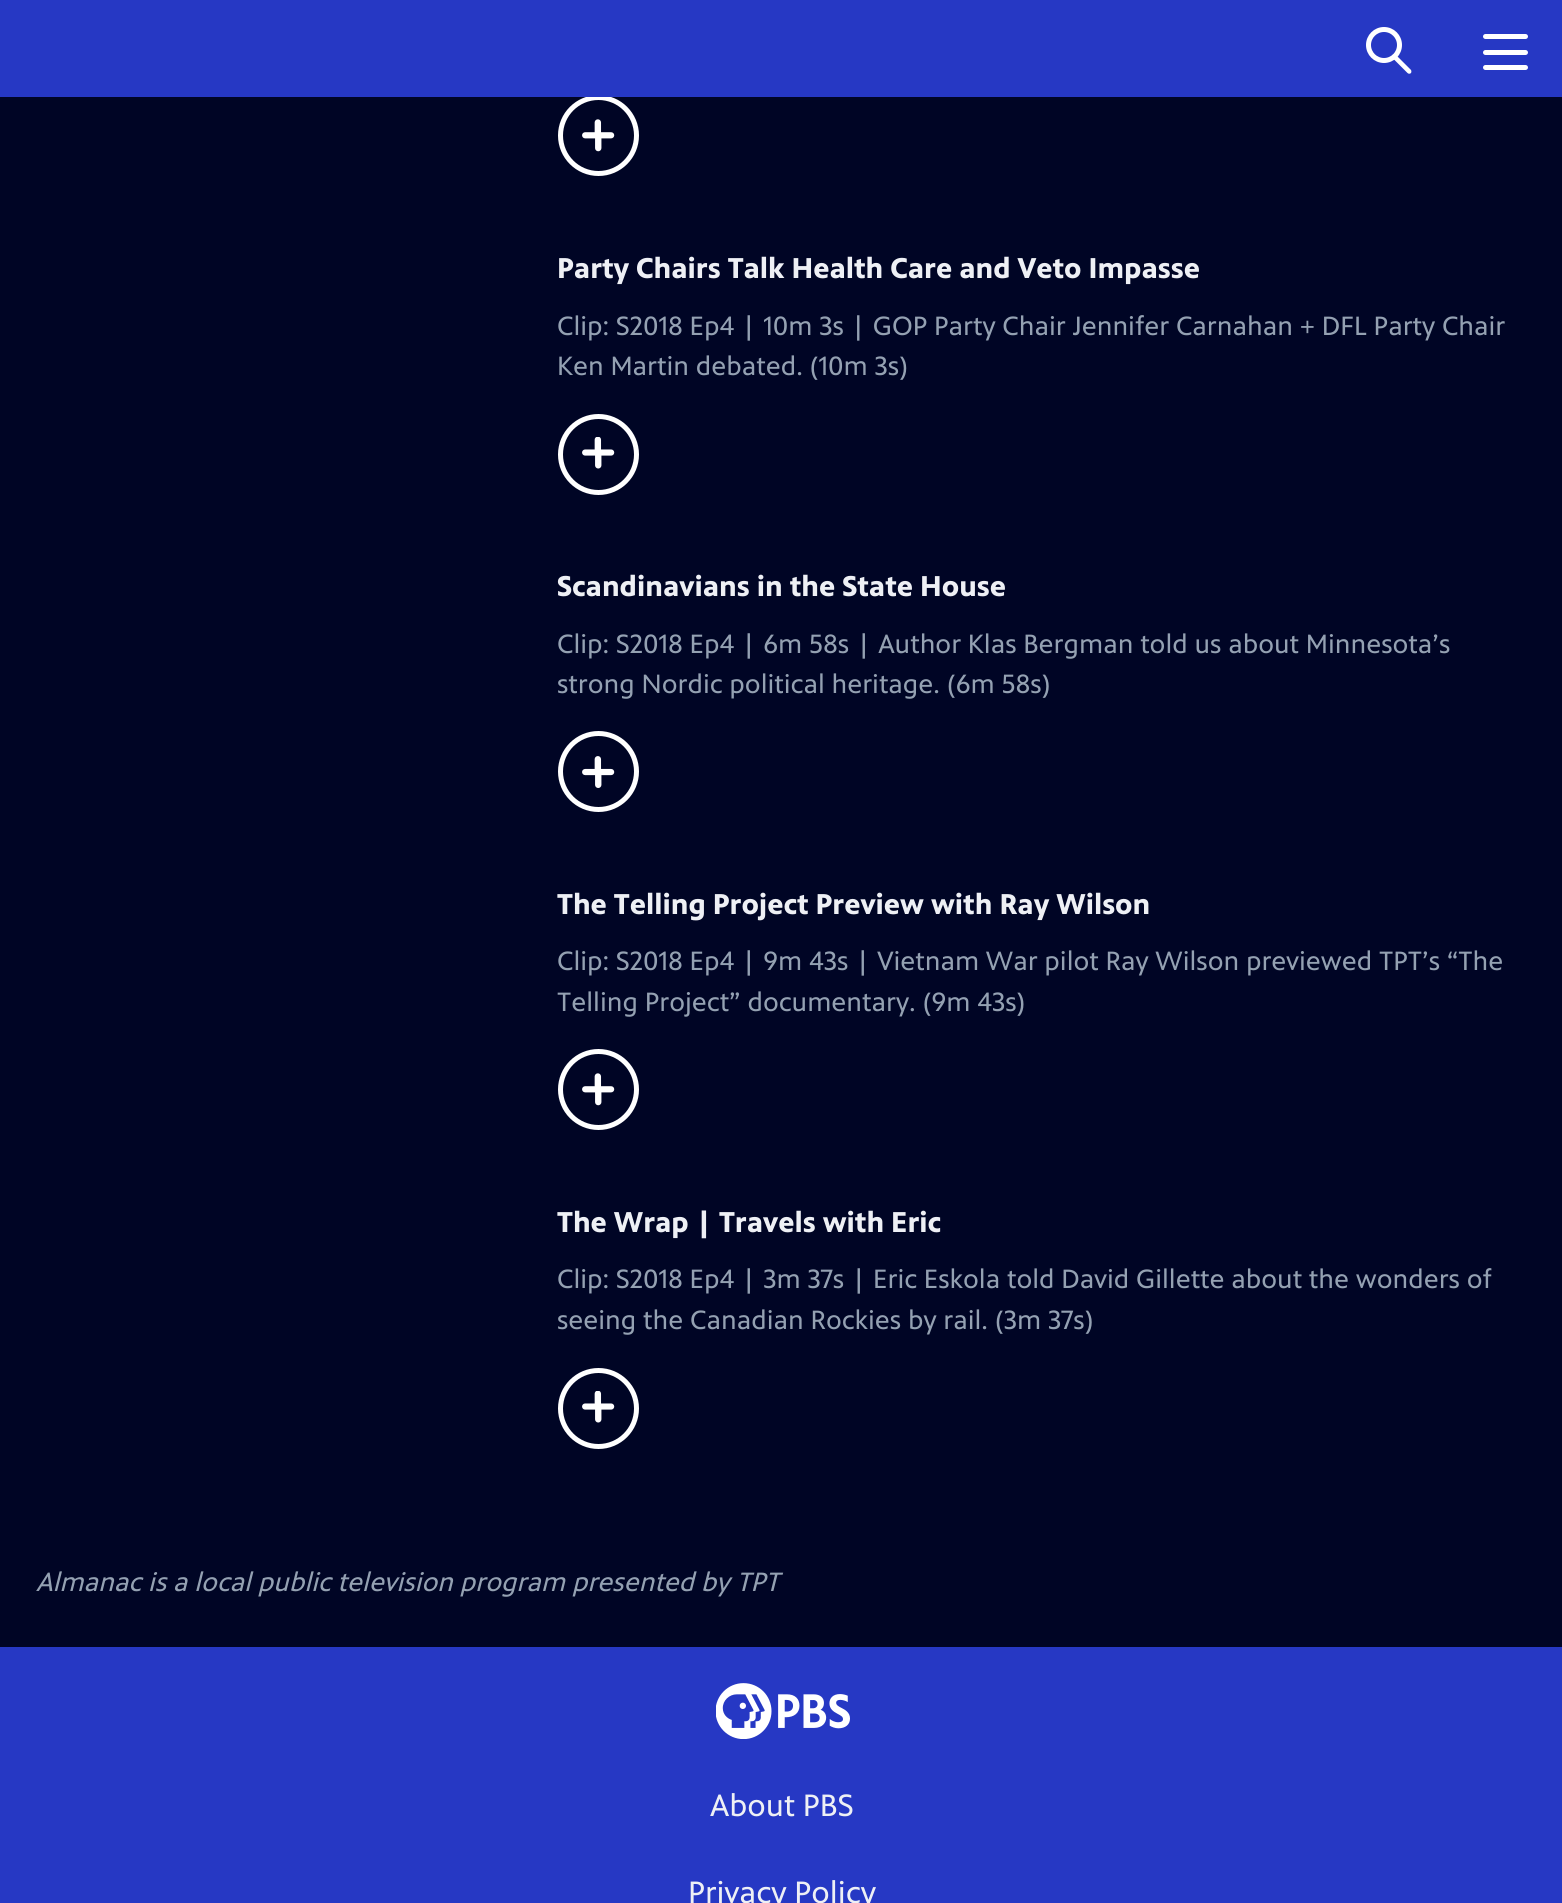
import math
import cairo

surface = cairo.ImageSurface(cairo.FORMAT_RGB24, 1562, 1903)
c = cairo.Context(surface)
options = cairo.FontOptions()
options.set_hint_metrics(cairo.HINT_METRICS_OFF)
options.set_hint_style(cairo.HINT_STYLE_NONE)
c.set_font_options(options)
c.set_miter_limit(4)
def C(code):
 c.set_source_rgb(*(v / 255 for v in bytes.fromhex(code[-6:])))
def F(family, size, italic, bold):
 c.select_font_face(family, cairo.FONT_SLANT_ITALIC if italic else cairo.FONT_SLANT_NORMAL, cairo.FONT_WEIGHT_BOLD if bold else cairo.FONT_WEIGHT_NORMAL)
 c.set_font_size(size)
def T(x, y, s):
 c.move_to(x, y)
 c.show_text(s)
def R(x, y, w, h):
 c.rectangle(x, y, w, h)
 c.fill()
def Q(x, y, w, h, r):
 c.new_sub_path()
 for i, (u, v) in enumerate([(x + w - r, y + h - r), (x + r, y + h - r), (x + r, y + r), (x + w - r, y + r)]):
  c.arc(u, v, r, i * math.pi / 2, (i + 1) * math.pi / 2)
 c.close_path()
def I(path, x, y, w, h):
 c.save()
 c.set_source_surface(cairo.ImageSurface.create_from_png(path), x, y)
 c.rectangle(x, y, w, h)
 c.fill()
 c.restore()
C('000525')
c.paint()
c.arc(598.5,135.5,38,0,2 * math.pi)
C('ffffff')
c.set_line_width(5)
c.stroke()
C('2638c4')
R(0,0,1562,97)
c.arc(1384,45,15.5,0,2 * math.pi)
C('ffffff')
c.stroke()
c.new_path()
c.move_to(1407.5,73)
c.line_to(1392.5,58)
c.curve_to(1391.5,57.5,1391.5,56,1392.5,55)
c.curve_to(1393.5,54,1395,54,1396,55)
c.line_to(1411,70)
c.curve_to(1411.5,71,1411.5,72,1411,73)
c.curve_to(1410,74,1408.5,74,1407.5,73)
c.close_path()
c.fill()
Q(1483,34,45,5,2.5)
c.fill()
Q(1483,50,45,5,2.5)
c.fill()
Q(1483,65,45,5,2.5)
c.fill()
I('1.png',582,119,33,33)
F('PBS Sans',29.25,0,1)
C('eef0f5')
T(557,278,'Party Chairs Talk Health Care and Veto Impasse')
F('PBS Sans',27,0,0)
C('94a1b2')
T(557,335,'Clip: S2018 Ep4 | 10m 3s | GOP Party Chair Jennifer Carnahan + DFL Party Chair')
T(557,375,'Ken Martin debated. (10m 3s)')
c.new_path()
c.arc(598.5,454.5,38,0,2 * math.pi)
C('ffffff')
c.stroke()
I('2.png',582,437,33,32)
F('PBS Sans',29.25,0,1)
C('eef0f5')
T(557,596,'Scandinavians in the State House')
F('PBS Sans',27,0,0)
C('94a1b2')
T(557,653,'Clip: S2018 Ep4 | 6m 58s | Author Klas Bergman told us about Minnesota’s')
T(557,693,'strong Nordic political heritage. (6m 58s)')
c.new_path()
c.arc(598.5,771.5,38,0,2 * math.pi)
C('ffffff')
c.stroke()
I('3.png',582,756,33,32)
F('PBS Sans',29.25,0,1)
C('eef0f5')
T(557,914,'The Telling Project Preview with Ray Wilson')
F('PBS Sans',27,0,0)
C('94a1b2')
T(557,970,'Clip: S2018 Ep4 | 9m 43s | Vietnam War pilot Ray Wilson previewed TPT’s “The')
T(557,1011,'Telling Project” documentary. (9m 43s)')
c.new_path()
c.arc(598.5,1089.5,38,0,2 * math.pi)
C('ffffff')
c.stroke()
I('1.png',582,1073,33,33)
F('PBS Sans',29.25,0,1)
C('eef0f5')
T(557,1232,'The Wrap | Travels with Eric')
F('PBS Sans',27,0,0)
C('94a1b2')
T(557,1288,'Clip: S2018 Ep4 | 3m 37s | Eric Eskola told David Gillette about the wonders of')
T(557,1329,'seeing the Canadian Rockies by rail. (3m 37s)')
c.new_path()
c.arc(598.5,1408.5,38,0,2 * math.pi)
C('ffffff')
c.stroke()
I('2.png',582,1391,33,32)
F('PBS Sans',27,1,0)
C('94a1b2')
T(36,1591,'Almanac is a local public television program presented by TPT')
C('2638c4')
R(0,1647,1562,256)
I('4.png',716,1683,134,56)
F('PBS Sans',31.5,0,0)
C('eef0f5')
T(710,1816,'About PBS')
T(688,1903,'Privacy Policy')
surface.write_to_png('o.png')
